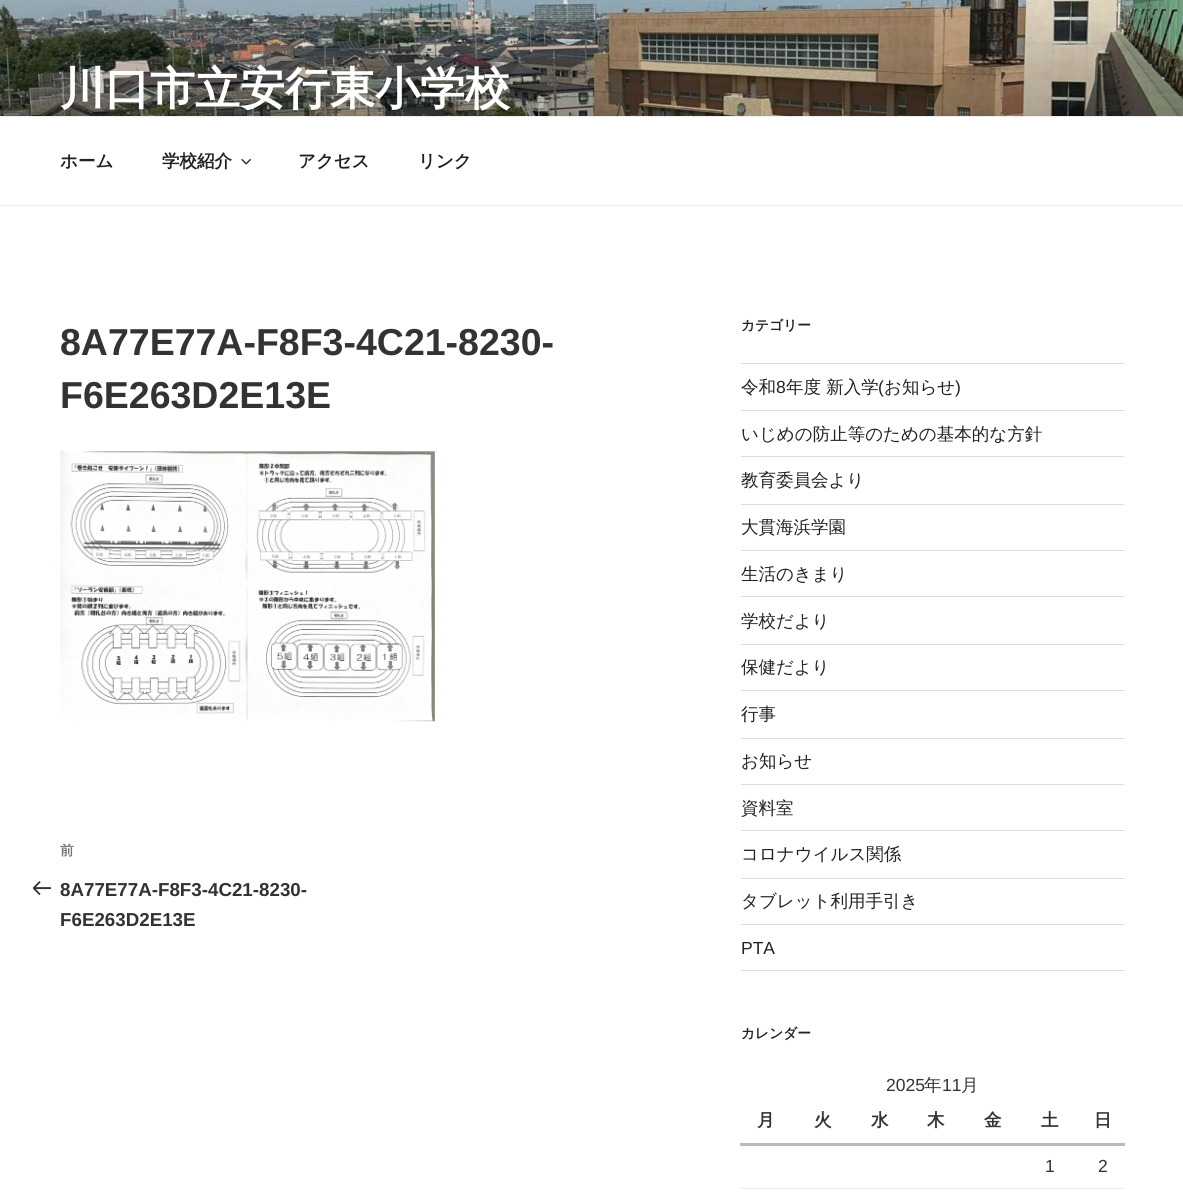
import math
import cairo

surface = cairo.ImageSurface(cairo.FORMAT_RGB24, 1183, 1203)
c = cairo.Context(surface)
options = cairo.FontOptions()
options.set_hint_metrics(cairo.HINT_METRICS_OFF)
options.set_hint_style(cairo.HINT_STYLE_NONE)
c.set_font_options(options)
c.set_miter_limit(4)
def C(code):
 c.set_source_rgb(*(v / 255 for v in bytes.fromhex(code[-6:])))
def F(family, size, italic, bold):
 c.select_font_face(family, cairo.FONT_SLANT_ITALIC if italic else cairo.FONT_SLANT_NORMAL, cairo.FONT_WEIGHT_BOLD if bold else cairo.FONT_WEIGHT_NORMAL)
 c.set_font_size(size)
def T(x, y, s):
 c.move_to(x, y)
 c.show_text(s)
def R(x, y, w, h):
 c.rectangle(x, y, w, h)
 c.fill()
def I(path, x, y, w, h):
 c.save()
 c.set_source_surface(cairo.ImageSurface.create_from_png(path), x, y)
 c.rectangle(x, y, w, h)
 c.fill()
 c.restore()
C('ffffff')
c.paint()
I('1.png',0,0,1183,116)
F('WenQuanYi Zen Hei',45,0,1)
C('ffffff')
T(60,104,'川口市立安行東小学校')
C('eeeeee')
R(0,116,1183,1)
R(0,205,1183,1)
F('WenQuanYi Zen Hei',17.5,0,1)
C('222222')
T(60,167,'ホーム')
T(162,167,'学校紹介')
I('2.png',241,158,10,7)
T(298,167,'アクセス')
T(418,167,'リンク')
F('Liberation Sans',37.5,0,1)
C('333333')
T(60,355,'8A77E77A-F8F3-4C21-8230-')
T(60,408,'F6E263D2E13E')
I('3.png',60,451,375,271)
F('WenQuanYi Zen Hei',13.75,0,1)
C('767676')
T(60,855,'前')
I('4.png',33,881,18,14)
F('Liberation Sans',18.75,0,1)
C('333333')
T(60,896,'8A77E77A-F8F3-4C21-8230-')
T(60,926,'F6E263D2E13E')
F('WenQuanYi Zen Hei',13.75,0,1)
C('222222')
T(741,330,'カテゴリー')
C('dddddd')
R(741,363,383,1)
R(741,410,383,1)
F('WenQuanYi Zen Hei Medium',17.5,0,0)
C('222222')
T(741,393,'令和')
F('Liberation Sans',17.5,0,0)
T(776,393,'8')
F('WenQuanYi Zen Hei Medium',17.5,0,0)
T(786,393,'年度 新入学')
F('Liberation Sans',17.5,0,0)
T(878,393,'(')
F('WenQuanYi Zen Hei Medium',17.5,0,0)
T(884,393,'お知らせ')
F('Liberation Sans',17.5,0,0)
T(955,393,')')
C('dddddd')
R(741,456,383,1)
F('WenQuanYi Zen Hei Medium',17.5,0,0)
C('222222')
T(741,440,'いじめの防止等のための基本的な方針')
C('dddddd')
R(741,504,383,1)
C('222222')
T(741,486,'教育委員会より')
C('dddddd')
R(741,550,383,1)
C('222222')
T(741,533,'大貫海浜学園')
C('dddddd')
R(741,596,383,1)
C('222222')
T(741,580,'生活のきまり')
C('dddddd')
R(741,644,383,1)
C('222222')
T(741,627,'学校だより')
C('dddddd')
R(741,690,383,1)
C('222222')
T(741,673,'保健だより')
C('dddddd')
R(741,738,383,1)
C('222222')
T(741,720,'行事')
C('dddddd')
R(741,784,383,1)
C('222222')
T(741,767,'お知らせ')
C('dddddd')
R(741,830,383,1)
C('222222')
T(741,814,'資料室')
C('dddddd')
R(741,878,383,1)
C('222222')
T(741,860,'コロナウイルス関係')
C('dddddd')
R(741,924,383,1)
C('222222')
T(741,907,'タブレット利用手引き')
C('dddddd')
R(741,970,383,1)
F('Liberation Sans',17.5,0,0)
C('222222')
T(741,954,'PTA')
F('WenQuanYi Zen Hei',13.75,0,1)
T(741,1038,'カレンダー')
F('Liberation Sans',17.5,0,0)
C('333333')
T(886,1091,'2025')
F('WenQuanYi Zen Hei Medium',17.5,0,0)
T(924,1091,'年')
F('Liberation Sans',17.5,0,0)
T(942,1091,'11')
F('WenQuanYi Zen Hei Medium',17.5,0,0)
T(961,1091,'月')
F('WenQuanYi Zen Hei',17.5,0,1)
T(757,1126,'月')
T(814,1126,'火')
T(871,1126,'水')
T(927,1126,'木')
T(984,1126,'金')
T(1041,1126,'土')
C('bbbbbb')
R(740,1143,385,3)
C('333333')
T(1094,1126,'日')
C('eeeeee')
R(740,1188,385,1)
F('Liberation Sans',17.5,0,0)
C('333333')
T(1045,1172,'1')
T(1098,1172,'2')
surface.write_to_png('o.png')
